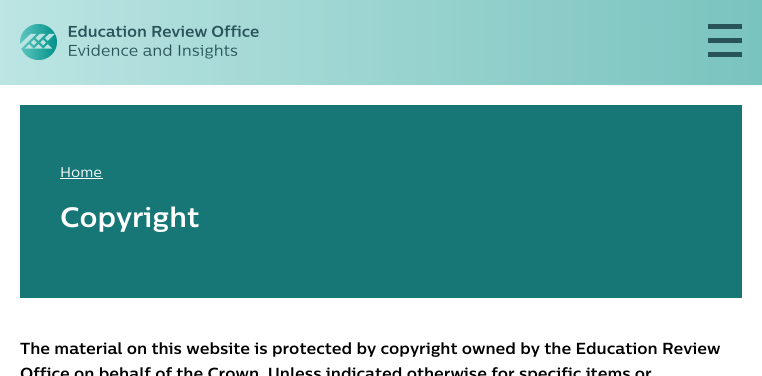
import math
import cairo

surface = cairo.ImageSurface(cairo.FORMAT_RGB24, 762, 376)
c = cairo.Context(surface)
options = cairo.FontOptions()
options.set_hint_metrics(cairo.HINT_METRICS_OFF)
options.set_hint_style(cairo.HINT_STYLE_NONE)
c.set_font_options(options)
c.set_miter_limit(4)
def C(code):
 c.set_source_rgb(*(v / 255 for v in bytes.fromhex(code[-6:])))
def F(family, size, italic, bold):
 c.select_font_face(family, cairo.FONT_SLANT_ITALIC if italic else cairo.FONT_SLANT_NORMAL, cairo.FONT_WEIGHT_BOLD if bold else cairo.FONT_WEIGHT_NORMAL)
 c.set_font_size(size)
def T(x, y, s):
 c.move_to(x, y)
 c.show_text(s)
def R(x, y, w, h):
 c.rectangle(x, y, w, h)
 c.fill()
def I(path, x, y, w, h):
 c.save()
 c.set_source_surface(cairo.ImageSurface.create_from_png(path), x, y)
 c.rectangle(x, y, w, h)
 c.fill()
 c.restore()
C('ffffff')
c.paint()
gradient = cairo.LinearGradient(0,43,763,42)
gradient.add_color_stop_rgba(0,0.737,0.898,0.89,1)
gradient.add_color_stop_rgba(1,0.475,0.765,0.745,1)
c.set_source(gradient)
R(0,0,762,85)
I('1.png',20,24,239,36)
C('285459')
R(708,24,34,5)
R(708,38,34,5)
R(708,52,34,5)
C('177777')
R(20,105,722,193)
F('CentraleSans',14,0,0)
C('ffffff')
T(60,177,'Home')
R(60,178,43,1)
F('CentraleSans',28,0,1)
T(60,227,'Copyright')
F('CentraleSans',16,0,1)
C('000000')
T(20,354,'The material on this website is protected by copyright owned by the Education Review')
T(20,379,'Office on behalf of the Crown. Unless indicated otherwise for specific items or')
surface.write_to_png('o.png')
